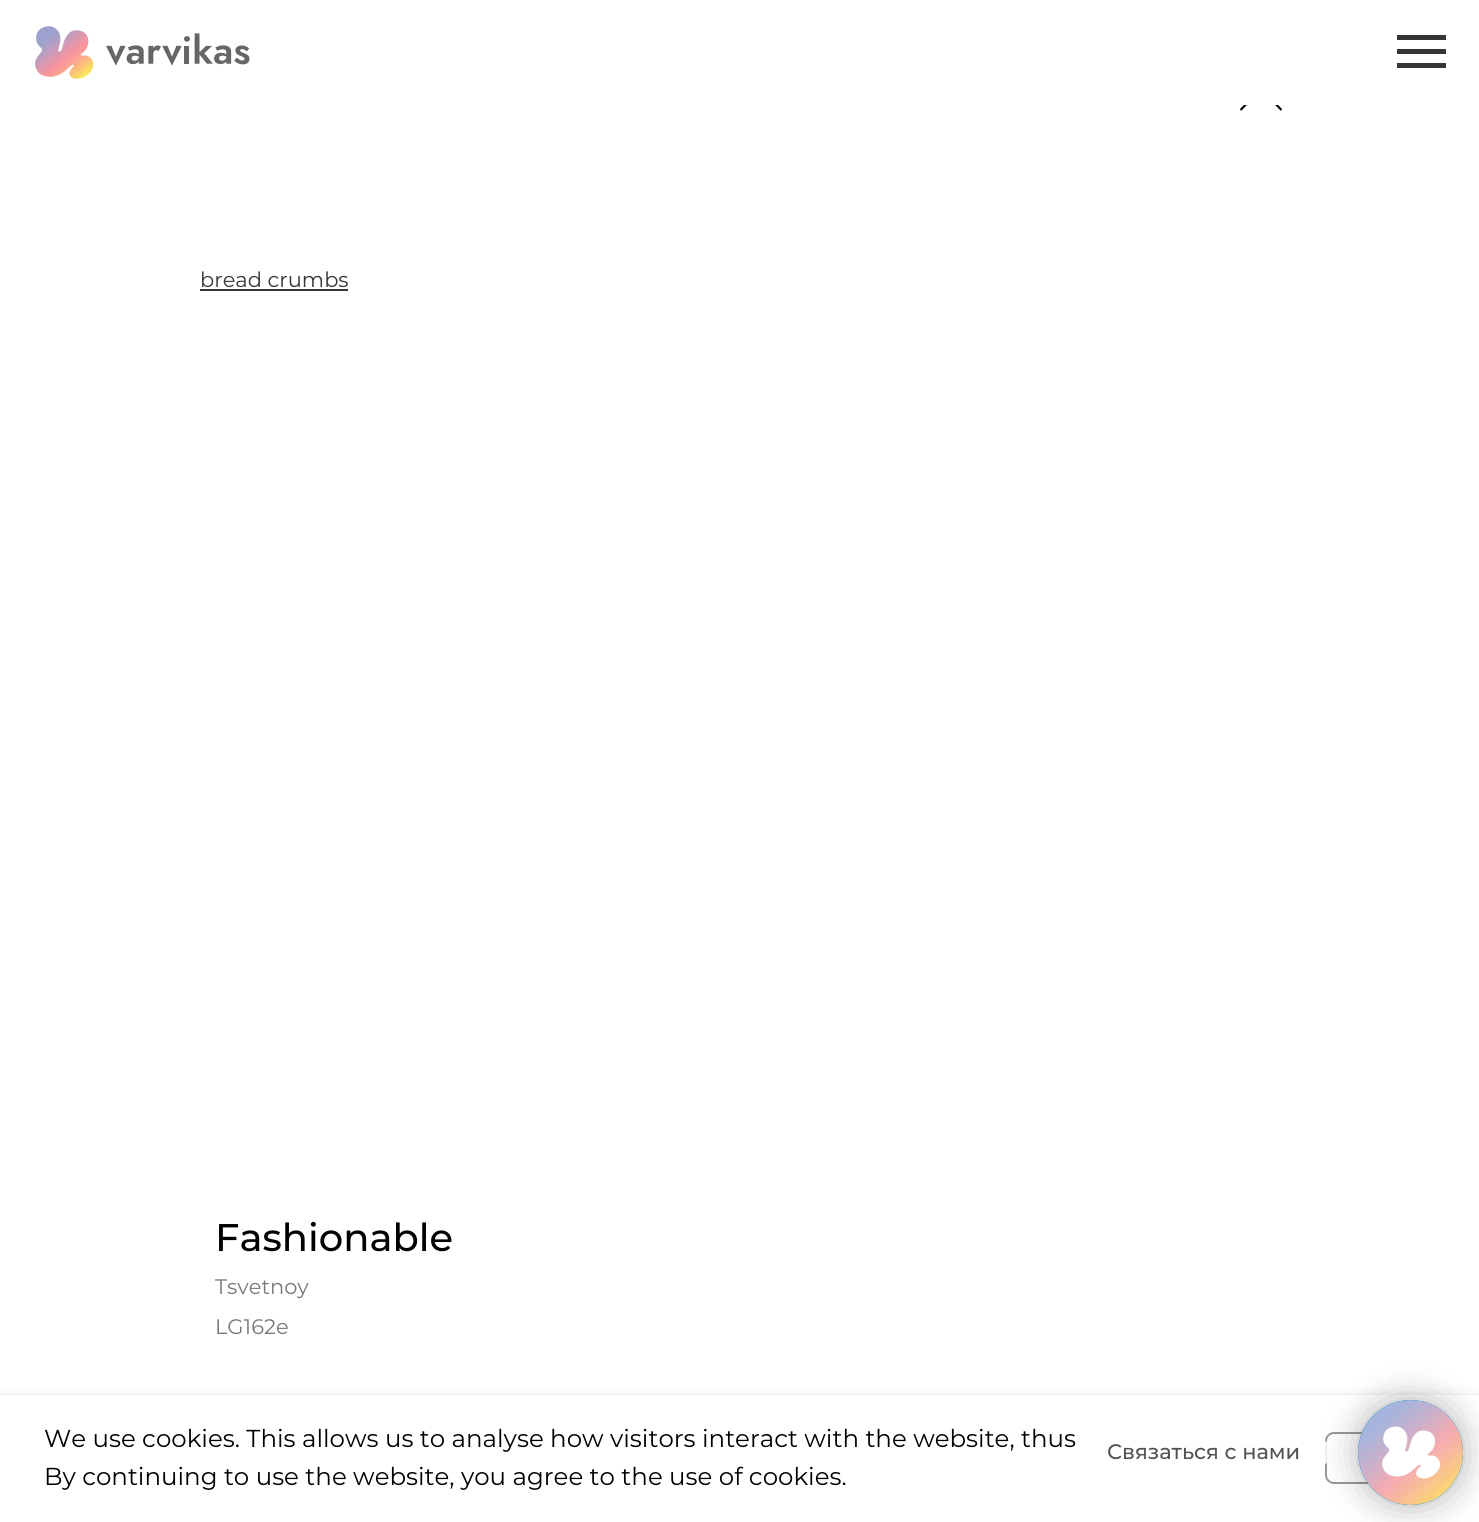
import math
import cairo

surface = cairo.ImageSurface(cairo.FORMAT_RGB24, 1479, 1522)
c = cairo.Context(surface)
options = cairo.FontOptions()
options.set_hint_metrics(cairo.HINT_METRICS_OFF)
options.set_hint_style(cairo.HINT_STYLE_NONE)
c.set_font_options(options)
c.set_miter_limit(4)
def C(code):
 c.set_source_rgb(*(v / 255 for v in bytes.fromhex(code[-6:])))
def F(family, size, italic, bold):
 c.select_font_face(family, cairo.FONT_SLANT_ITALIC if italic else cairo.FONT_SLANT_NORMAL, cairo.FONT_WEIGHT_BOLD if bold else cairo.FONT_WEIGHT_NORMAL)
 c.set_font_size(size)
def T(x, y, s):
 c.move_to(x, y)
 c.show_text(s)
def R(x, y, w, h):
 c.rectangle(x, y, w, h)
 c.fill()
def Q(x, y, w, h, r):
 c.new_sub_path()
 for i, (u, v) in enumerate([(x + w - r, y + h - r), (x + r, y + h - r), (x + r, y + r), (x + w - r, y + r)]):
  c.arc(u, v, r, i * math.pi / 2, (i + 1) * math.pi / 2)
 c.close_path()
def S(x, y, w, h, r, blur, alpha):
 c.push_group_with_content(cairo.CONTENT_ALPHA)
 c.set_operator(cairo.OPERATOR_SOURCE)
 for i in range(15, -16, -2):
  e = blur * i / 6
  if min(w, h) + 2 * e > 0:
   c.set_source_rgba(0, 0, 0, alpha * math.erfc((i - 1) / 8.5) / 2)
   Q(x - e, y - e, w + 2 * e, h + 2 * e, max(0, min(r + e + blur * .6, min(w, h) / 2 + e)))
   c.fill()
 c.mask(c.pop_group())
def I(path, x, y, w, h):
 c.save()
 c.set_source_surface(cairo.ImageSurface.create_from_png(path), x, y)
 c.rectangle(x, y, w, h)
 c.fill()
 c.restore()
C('ffffff')
c.paint()
I('1.png',35,26,215,53)
C('353535')
R(1397,35,49,5)
R(1397,49,49,5)
R(1397,63,49,5)
C('000000')
c.new_path()
c.move_to(1242,68)
c.line_to(1282,109)
c.line_to(1281,111)
c.line_to(1241,70)
c.close_path()
c.fill()
c.new_path()
c.move_to(1280,68)
c.line_to(1240,109)
c.line_to(1241,111)
c.line_to(1281,70)
c.close_path()
c.fill()
C('ffffff')
R(1241,68,40,37)
F('Montserrat',21,0,0)
C('353535')
T(200,287,'bread crumbs')
R(200,289,148,2)
C('000000')
S(0,1395,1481,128,0,4.5,.1)
C('ffffff')
R(0,1395,1479,127)
F('Montserrat',24.5,0,0)
C('000000')
T(44,1447,'We use cookies. This allows us to analyse how visitors interact with the website, thus')
T(44,1485,'By continuing to use the website, you agree to the use of cookies.')
Q(1326,1433,110,50,8)
C('999999')
c.stroke()
F('Montserrat Medium',21,0,0)
C('535353')
T(1107,1459,'Связаться с нами')
c.set_source_rgba(1,1,1,0.85)
c.new_path()
c.move_to(1323,1466.5)
c.line_to(1323,1438.5)
c.line_to(1337,1452.5)
c.close_path()
c.fill()
C('000000')
S(1358,1400,105,105,52.5,17.5,.3)
C('0088cc')
c.arc(1410.5,1452.5,52.5,0,2 * math.pi)
c.fill()
I('2.png',1358,1400,105,105)
F('Montserrat Medium',38.5,0,0)
C('000000')
T(215,1251,'Fashionable')
F('Montserrat',21,0,0)
C('777777')
T(215,1294,'Tsvetnoy')
T(215,1334,'LG162e')
surface.write_to_png('o.png')
